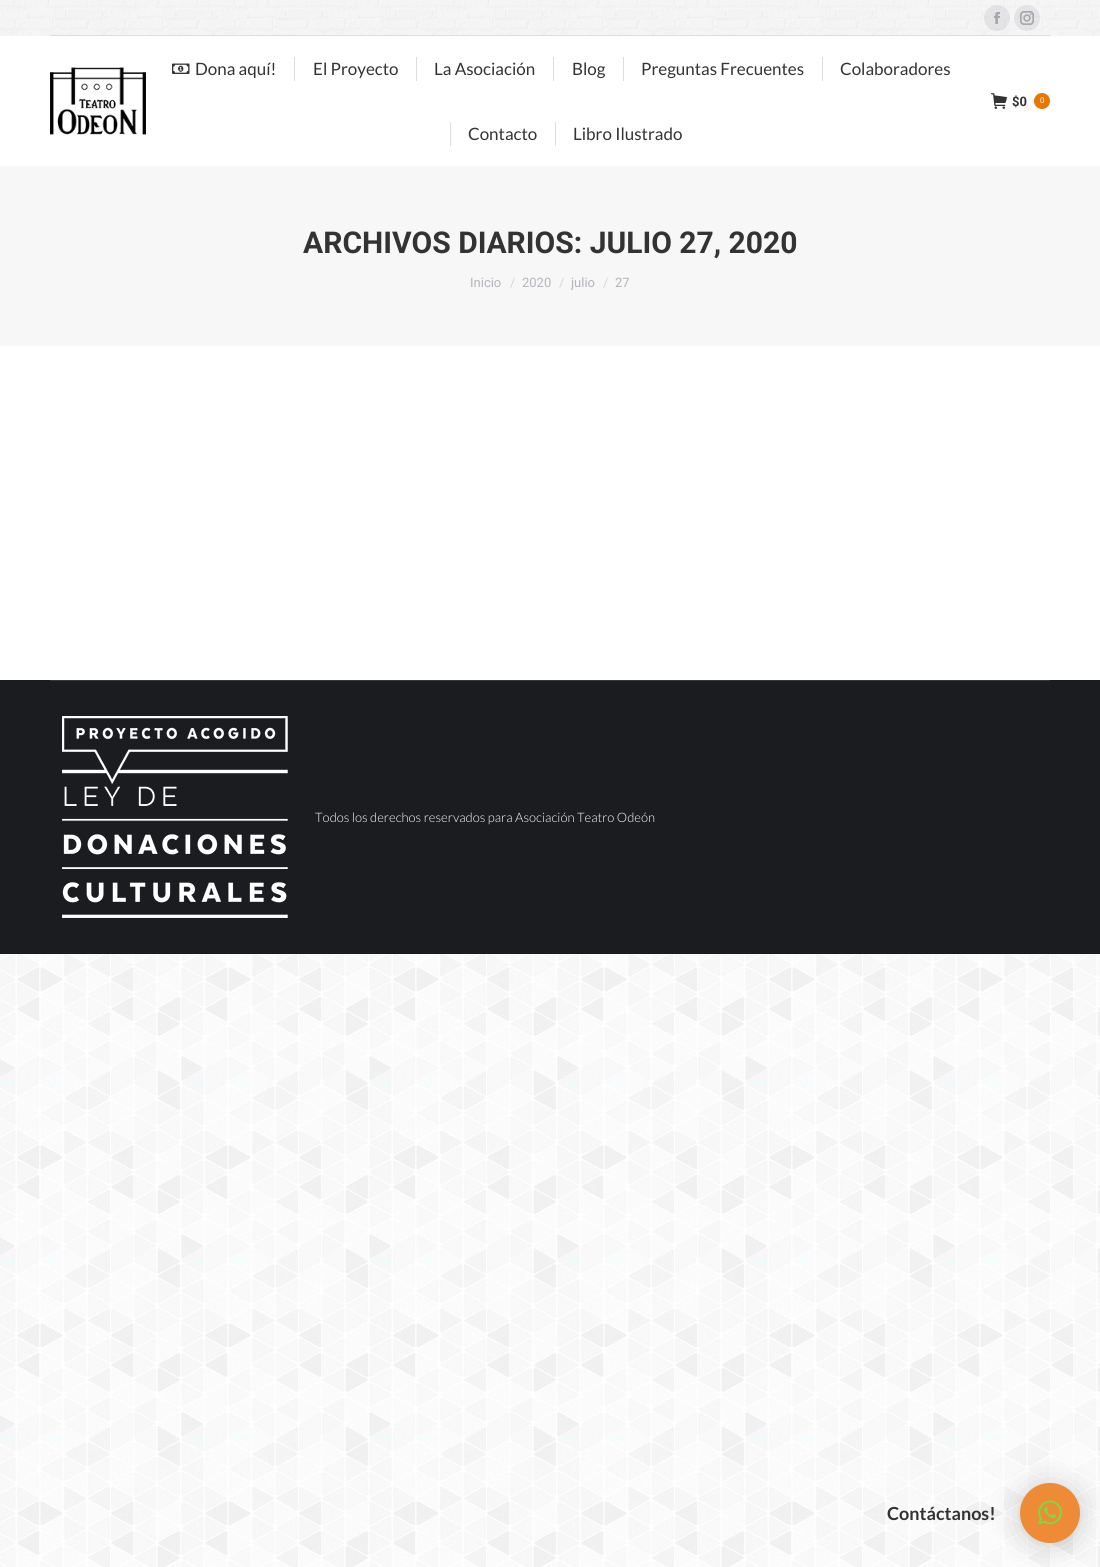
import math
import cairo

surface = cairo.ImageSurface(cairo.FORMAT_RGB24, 1100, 1567)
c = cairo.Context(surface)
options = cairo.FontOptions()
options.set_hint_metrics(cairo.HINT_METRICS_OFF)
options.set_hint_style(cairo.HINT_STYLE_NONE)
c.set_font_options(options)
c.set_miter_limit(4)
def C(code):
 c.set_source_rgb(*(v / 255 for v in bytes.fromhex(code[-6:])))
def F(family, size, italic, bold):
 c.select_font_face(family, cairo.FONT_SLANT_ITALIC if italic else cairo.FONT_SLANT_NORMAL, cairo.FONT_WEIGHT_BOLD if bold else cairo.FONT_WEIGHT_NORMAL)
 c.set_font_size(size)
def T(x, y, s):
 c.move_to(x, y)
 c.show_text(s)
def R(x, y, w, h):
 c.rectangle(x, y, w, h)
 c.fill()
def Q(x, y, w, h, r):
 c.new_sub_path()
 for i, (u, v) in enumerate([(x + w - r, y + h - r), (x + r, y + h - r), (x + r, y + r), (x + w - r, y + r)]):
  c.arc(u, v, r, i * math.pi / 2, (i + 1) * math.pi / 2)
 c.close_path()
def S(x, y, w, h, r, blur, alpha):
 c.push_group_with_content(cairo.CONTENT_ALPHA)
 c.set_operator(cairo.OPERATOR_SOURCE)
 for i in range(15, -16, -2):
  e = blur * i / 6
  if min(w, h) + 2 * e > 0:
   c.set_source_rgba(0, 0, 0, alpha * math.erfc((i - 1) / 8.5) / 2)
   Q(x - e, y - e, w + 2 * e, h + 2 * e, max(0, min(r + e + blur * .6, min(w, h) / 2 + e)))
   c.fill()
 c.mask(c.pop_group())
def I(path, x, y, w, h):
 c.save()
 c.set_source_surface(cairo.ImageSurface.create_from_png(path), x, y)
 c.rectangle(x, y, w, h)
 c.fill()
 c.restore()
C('ffffff')
c.paint()
I('1.png',0,954,1100,613)
I('2.png',0,0,1100,36)
c.set_source_rgba(0.639,0.643,0.667,0.2)
c.arc(997,18,13,0,2 * math.pi)
c.fill()
I('3.png',994,12,6,12)
c.arc(1027,18,13,0,2 * math.pi)
c.fill()
I('4.png',1020,11,14,14)
c.set_source_rgba(0.2,0.2,0.2,0.12)
R(50,35,1000,1)
I('5.png',50,67,96,68)
I('6.png',172,63,18,11)
F('Lato',17,0,0)
C('333333')
T(195,75,'Dona aquí!')
C('dedede')
R(294,57,1,24)
C('333333')
T(313,75,'El Proyecto')
C('dedede')
R(416,57,1,24)
C('333333')
T(434,75,'La Asociación')
C('dedede')
R(553,57,1,24)
C('333333')
T(572,75,'Blog')
C('dedede')
R(623,57,1,24)
C('333333')
T(641,75,'Preguntas Frecuentes')
C('dedede')
R(822,57,1,24)
C('333333')
T(840,75,'Colaboradores')
C('dedede')
R(450,122,1,24)
C('333333')
T(468,140,'Contacto')
C('dedede')
R(555,122,1,24)
C('333333')
T(573,140,'Libro Ilustrado')
I('7.png',991,93,16,16)
F('Roboto',13,0,1)
T(1012,106,'$0')
C('ea7600')
c.new_path()
c.arc(1042,101,8,0,2 * math.pi)
c.fill()
F('Liberation Sans',8,0,0)
C('ffffff')
T(1040,103,'0')
C('f7f7f7')
R(0,166,1100,180)
F('Roboto',30,0,1)
C('333333')
T(303,253,'ARCHIVOS DIARIOS: JULIO 27, 2020')
F('Roboto',13,0,0)
C('b4b5bb')
T(470,287,'Inicio')
C('d6d6d9')
T(510,287,'/')
C('b4b5bb')
T(522,287,'2020')
C('d6d6d9')
T(559,287,'/')
C('b4b5bb')
T(571,287,'julio')
C('d6d6d9')
T(603,287,'/')
C('b4b5bb')
T(615,287,'27')
C('1a1c20')
R(0,680,1100,274)
C('35373b')
R(50,680,1000,1)
I('8.png',62,716,226,202)
F('Lato Light',13,0,0)
C('ffffff')
T(315,822,'Todos los derechos reservados para Asociación Teatro Odeón')
C('000000')
S(1020,1485,60,60,30,16,.16)
S(1020,1484,60,60,30,3,.06)
C('ed8b36')
c.arc(1050,1513,30,0,2 * math.pi)
c.fill()
F('Lato',18,0,1)
C('333333')
T(887,1520,'Contáctanos!')
I('9.png',1038,1500,24,25)
surface.write_to_png('o.png')
